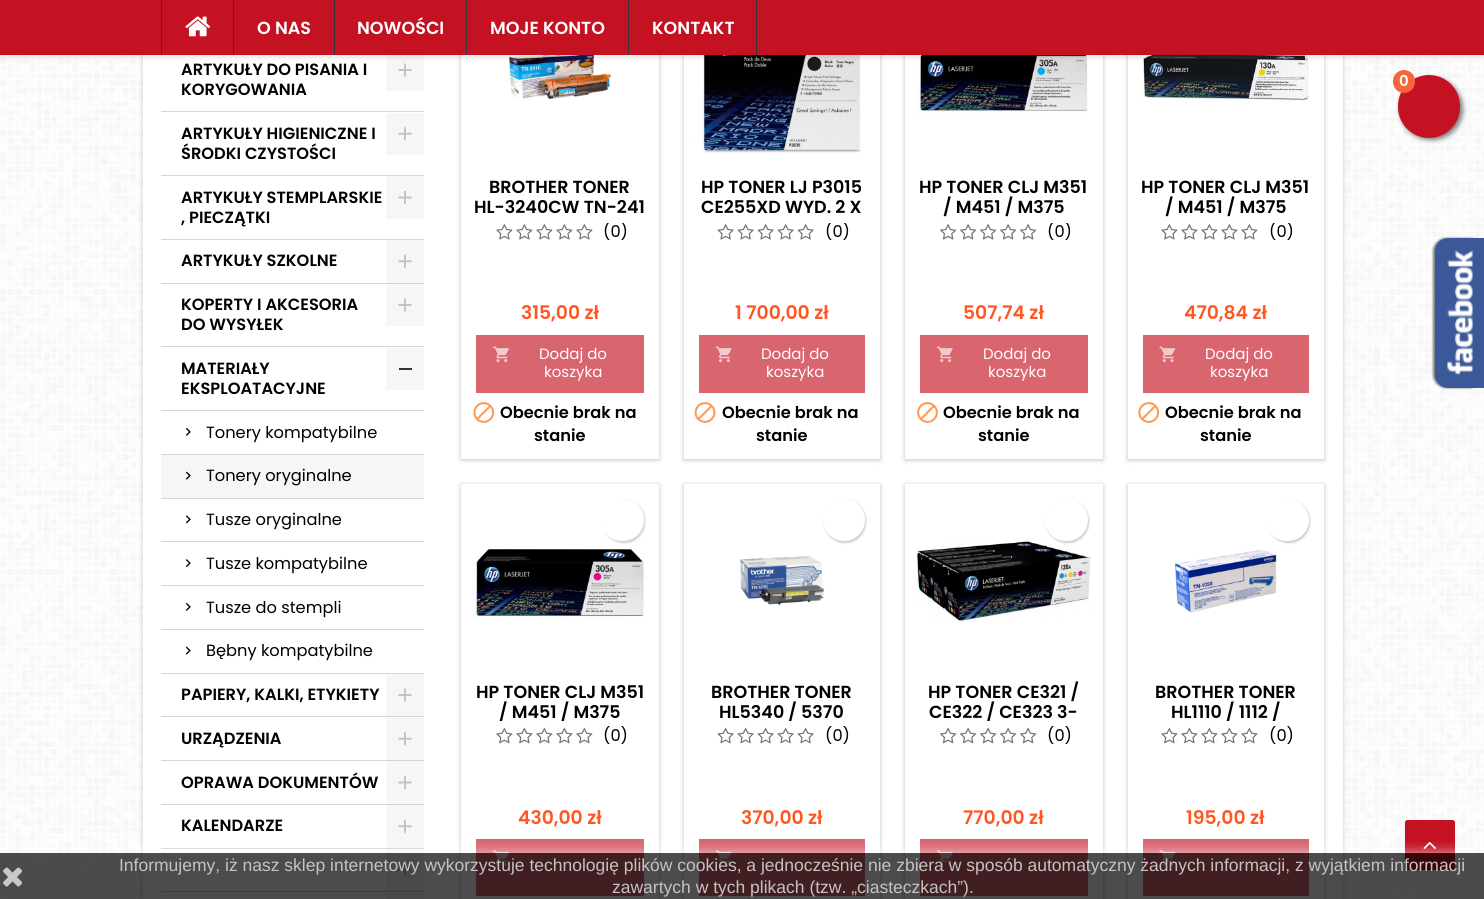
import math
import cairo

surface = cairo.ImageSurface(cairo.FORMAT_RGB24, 1484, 899)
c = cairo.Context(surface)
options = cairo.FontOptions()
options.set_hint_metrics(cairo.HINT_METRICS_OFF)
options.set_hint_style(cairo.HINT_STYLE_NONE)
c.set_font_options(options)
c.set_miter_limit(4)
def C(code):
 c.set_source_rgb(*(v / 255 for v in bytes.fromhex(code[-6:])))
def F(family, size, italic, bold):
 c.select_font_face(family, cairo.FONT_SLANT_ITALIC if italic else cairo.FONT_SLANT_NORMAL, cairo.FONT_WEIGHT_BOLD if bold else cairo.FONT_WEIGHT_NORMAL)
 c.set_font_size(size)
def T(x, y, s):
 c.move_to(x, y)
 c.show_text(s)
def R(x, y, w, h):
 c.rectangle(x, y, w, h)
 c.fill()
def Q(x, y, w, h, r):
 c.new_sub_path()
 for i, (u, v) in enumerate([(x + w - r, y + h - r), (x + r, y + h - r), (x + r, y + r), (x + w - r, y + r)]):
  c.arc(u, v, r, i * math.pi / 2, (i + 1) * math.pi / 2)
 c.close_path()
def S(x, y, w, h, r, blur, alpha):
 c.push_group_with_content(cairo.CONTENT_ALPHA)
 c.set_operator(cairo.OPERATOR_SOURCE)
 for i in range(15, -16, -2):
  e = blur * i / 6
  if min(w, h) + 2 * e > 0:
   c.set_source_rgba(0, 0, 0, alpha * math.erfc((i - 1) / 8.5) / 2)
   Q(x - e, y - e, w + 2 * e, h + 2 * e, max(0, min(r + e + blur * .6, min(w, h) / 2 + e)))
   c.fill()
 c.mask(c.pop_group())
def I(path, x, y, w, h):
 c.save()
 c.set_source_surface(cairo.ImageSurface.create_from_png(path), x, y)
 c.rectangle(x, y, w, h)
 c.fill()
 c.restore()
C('ffffff')
c.paint()
I('1.png',0,55,1484,844)
C('000000')
S(143,-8,1200,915,0,2.5,.2)
C('ffffff')
R(143,55,1200,844)
C('f6f6f6')
R(386,55,38,36)
I('3.png',398,63,14,14)
C('000000')
S(461,-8,198,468,0,2.5,.24)
C('ffffff')
R(461,55,198,404)
I('12.png',509,55,102,45)
C('000000')
S(684,-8,196,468,0,2.5,.24)
C('ffffff')
R(684,55,196,404)
I('16.png',695,55,166,98)
C('000000')
S(905,-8,198,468,0,2.5,.24)
C('ffffff')
R(905,55,198,404)
I('20.png',916,55,172,64)
C('000000')
S(1128,-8,196,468,0,2.5,.24)
C('ffffff')
R(1128,55,196,404)
I('24.png',1139,55,171,53)
C('000000')
S(0,3,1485,55,0,2.5,.1)
C('c41222')
R(0,0,1484,55)
C('363636')
R(161,0,1,55)
I('2.png',185,16,26,21)
R(233,0,1,55)
F('Poppins SemiBold',17.5,0,0)
C('ffffff')
T(257,34,'O NAS')
C('363636')
R(334,0,1,55)
C('ffffff')
T(357,34,'NOWOŚCI')
C('363636')
R(466,0,1,55)
C('ffffff')
T(490,34,'MOJE KONTO')
C('363636')
R(756,0,1,55)
R(628,0,1,55)
C('ffffff')
T(652,34,'KONTAKT')
C('000000')
S(1400,78,63,62,31,2.5,.5)
C('c41222')
Q(1398,75,62,63,31)
c.fill()
C('f8653d')
Q(1393,70,22,23,11)
c.fill()
F('Poppins SemiBold',15,0,0)
C('ffffff')
T(1399,86,'0')
C('d6d4d4')
R(161,111,263,1)
F('Poppins SemiBold',16.25,0,0)
C('000000')
T(181,75,'ARTYKUŁY DO PISANIA I')
T(181,95,'KORYGOWANIA')
C('d6d4d4')
R(161,175,263,1)
C('000000')
T(181,139,'ARTYKUŁY HIGIENICZNE I')
T(181,159,'ŚRODKI CZYSTOŚCI')
C('f6f6f6')
R(386,113,38,42)
I('4.png',398,127,14,14)
C('d6d4d4')
R(161,239,263,1)
C('000000')
T(181,203,'ARTYKUŁY STEMPLARSKIE')
T(181,223,', PIECZĄTKI')
C('f6f6f6')
R(386,176,38,43)
I('5.png',398,191,14,13)
C('d6d4d4')
R(161,283,263,1)
C('000000')
T(181,266,'ARTYKUŁY SZKOLNE')
C('f6f6f6')
R(386,240,38,43)
I('6.png',398,254,14,14)
C('d6d4d4')
R(161,346,263,1)
C('000000')
T(181,310,'KOPERTY I AKCESORIA')
T(181,330,'DO WYSYŁEK')
C('f6f6f6')
R(386,284,38,42)
I('3.png',398,298,14,14)
C('d6d4d4')
R(161,410,263,1)
C('000000')
T(181,374,'MATERIAŁY')
T(181,394,'EKSPLOATACYJNE')
C('f6f6f6')
R(386,348,38,42)
C('333333')
R(399,368,13,2)
C('d6d4d4')
R(161,454,263,1)
I('7.png',185,427,6,9)
F('Poppins',16.25,0,0)
C('000000')
T(206,438,'Tonery kompatybilne')
C('f6f6f6')
R(161,455,263,43)
C('d6d4d4')
R(161,498,263,1)
I('8.png',185,471,6,9)
C('000000')
T(206,481,'Tonery oryginalne')
C('d6d4d4')
R(161,541,263,1)
I('9.png',185,515,6,9)
C('000000')
T(206,525,'Tusze oryginalne')
C('d6d4d4')
R(161,585,263,1)
I('10.png',185,559,6,9)
C('000000')
T(206,569,'Tusze kompatybilne')
C('d6d4d4')
R(161,629,263,1)
I('7.png',185,602,6,9)
C('000000')
T(206,613,'Tusze do stempli')
C('d6d4d4')
R(161,673,263,1)
I('11.png',185,646,6,9)
C('000000')
T(206,656,'Bębny kompatybilne')
C('d6d4d4')
R(161,716,263,1)
F('Poppins SemiBold',16.25,0,0)
C('000000')
T(181,700,'PAPIERY, KALKI, ETYKIETY')
C('f6f6f6')
R(386,674,38,42)
I('3.png',398,688,14,14)
C('d6d4d4')
R(161,760,263,1)
C('000000')
T(181,744,'URZĄDZENIA')
C('f6f6f6')
R(386,718,38,42)
I('4.png',398,732,14,14)
C('d6d4d4')
R(161,804,263,1)
C('000000')
T(181,788,'OPRAWA DOKUMENTÓW')
C('f6f6f6')
R(386,761,38,43)
I('5.png',398,776,14,13)
C('d6d4d4')
R(161,848,263,1)
C('000000')
T(181,831,'KALENDARZE')
C('f6f6f6')
R(386,805,38,43)
I('6.png',398,819,14,14)
R(386,849,38,42)
I('3.png',398,863,14,14)
C('d6d4d4')
R(161,891,263,1)
C('f6f6f6')
R(386,893,38,6)
F('Poppins SemiBold',17.5,0,0)
C('000000')
T(489,193,'BROTHER TONER')
T(474,213,'HL-3240CW TN-241')
I('13.png',496,224,17,16)
I('13.png',516,224,17,16)
I('13.png',536,224,17,16)
I('13.png',556,224,17,16)
I('13.png',576,224,17,16)
c.save()
c.rectangle(601,223,27,20)
c.clip()
F('Poppins',16.25,0,0)
T(603,237,'(0)')
c.restore()
F('Poppins SemiBold',18.75,0,0)
C('ff5722')
T(521,319,'315,00 zł')
C('d9656f')
R(476,335,168,58)
I('14.png',493,346,16,17)
F('Poppins',15,0,0)
C('ffffff')
T(539,359,'Dodaj do')
T(544,377,'koszyka')
I('15.png',473,402,22,21)
F('Poppins SemiBold',16.25,0,0)
C('000000')
T(500,418,'Obecnie brak na')
T(534,441,'stanie')
F('Poppins SemiBold',17.5,0,0)
T(701,193,'HP TONER LJ P3015')
T(701,213,'CE255XD WYD. 2 X')
I('17.png',717,224,17,16)
I('17.png',737,224,17,16)
I('17.png',757,224,17,16)
I('17.png',777,224,17,16)
I('17.png',797,224,17,16)
c.save()
c.rectangle(823,223,27,20)
c.clip()
F('Poppins',16.25,0,0)
T(825,237,'(0)')
c.restore()
F('Poppins SemiBold',18.75,0,0)
C('ff5722')
T(735,319,'1 700,00 zł')
C('d9656f')
R(699,335,166,58)
I('18.png',715,346,17,17)
F('Poppins',15,0,0)
C('ffffff')
T(761,359,'Dodaj do')
T(766,377,'koszyka')
I('19.png',694,402,22,21)
F('Poppins SemiBold',16.25,0,0)
C('000000')
T(722,418,'Obecnie brak na')
T(756,441,'stanie')
F('Poppins SemiBold',17.5,0,0)
T(919,193,'HP TONER CLJ M351')
T(943,213,'/ M451 / M375')
I('21.png',940,224,17,16)
I('21.png',960,224,17,16)
I('21.png',980,224,17,16)
I('21.png',1000,224,17,16)
I('21.png',1020,224,17,16)
c.save()
c.rectangle(1045,223,26,20)
c.clip()
F('Poppins',16.25,0,0)
T(1047,237,'(0)')
c.restore()
F('Poppins SemiBold',18.75,0,0)
C('ff5722')
T(963,319,'507,74 zł')
C('d9656f')
R(920,335,168,58)
I('22.png',937,346,16,17)
F('Poppins',15,0,0)
C('ffffff')
T(983,359,'Dodaj do')
T(988,377,'koszyka')
I('23.png',917,402,21,21)
F('Poppins SemiBold',16.25,0,0)
C('000000')
T(943,418,'Obecnie brak na')
T(978,441,'stanie')
F('Poppins SemiBold',17.5,0,0)
T(1141,193,'HP TONER CLJ M351')
T(1165,213,'/ M451 / M375')
I('13.png',1161,224,17,16)
I('13.png',1181,224,17,16)
I('13.png',1201,224,17,16)
I('13.png',1221,224,17,16)
I('13.png',1241,224,17,16)
c.save()
c.rectangle(1266,223,28,20)
c.clip()
F('Poppins',16.25,0,0)
T(1269,237,'(0)')
c.restore()
F('Poppins SemiBold',18.75,0,0)
C('ff5722')
T(1184,319,'470,84 zł')
C('d9656f')
R(1143,335,166,58)
I('25.png',1159,346,17,17)
F('Poppins',15,0,0)
C('ffffff')
T(1205,359,'Dodaj do')
T(1210,377,'koszyka')
I('15.png',1138,402,22,21)
F('Poppins SemiBold',16.25,0,0)
C('000000')
T(1165,418,'Obecnie brak na')
T(1200,441,'stanie')
C('000000')
S(461,485,198,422,0,2.5,.24)
C('ffffff')
R(461,484,198,415)
C('000000')
S(603,500,42,43,21,1,.2)
C('ffffff')
Q(601,499,43,42,21)
c.fill()
I('26.png',472,548,172,74)
F('Poppins SemiBold',17.5,0,0)
C('000000')
T(476,698,'HP TONER CLJ M351')
c.save()
c.rectangle(473,681,175,40)
c.clip()
T(499,718,'/ M451 / M375')
c.restore()
I('27.png',496,727,17,17)
I('27.png',516,727,17,17)
I('27.png',536,727,17,17)
I('27.png',556,727,17,17)
I('27.png',576,727,17,17)
c.save()
c.rectangle(601,726,27,20)
c.clip()
F('Poppins',16.25,0,0)
T(603,741,'(0)')
c.restore()
F('Poppins SemiBold',18.75,0,0)
C('ff5722')
T(518,824,'430,00 zł')
C('d9656f')
R(476,839,168,57)
I('28.png',493,850,16,16)
c.save()
c.set_fill_rule(cairo.FILL_RULE_EVEN_ODD)
c.new_path()
c.move_to(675,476)
c.line_to(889,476)
c.line_to(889,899)
c.line_to(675,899)
c.close_path()
c.move_to(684,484)
c.line_to(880,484)
c.line_to(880,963)
c.line_to(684,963)
c.close_path()
c.clip()
C('000000')
S(684,485,196,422,0,2.5,.24)
c.restore()
C('000000')
S(824,500,42,43,21,1,.2)
C('ffffff')
c.arc(844,520,21,0,2 * math.pi)
c.fill()
I('29.png',740,555,85,50)
F('Poppins SemiBold',17.5,0,0)
C('000000')
T(711,698,'BROTHER TONER')
c.save()
c.rectangle(695,681,174,40)
c.clip()
T(719,718,'HL5340 / 5370')
c.restore()
I('30.png',717,727,17,17)
I('30.png',737,727,17,17)
I('30.png',757,727,17,17)
I('30.png',777,727,17,17)
I('30.png',797,727,17,17)
c.save()
c.rectangle(823,726,27,20)
c.clip()
F('Poppins',16.25,0,0)
T(825,741,'(0)')
c.restore()
F('Poppins SemiBold',18.75,0,0)
C('ff5722')
T(741,824,'370,00 zł')
C('d9656f')
R(699,839,166,57)
I('31.png',715,850,17,16)
C('000000')
S(905,485,198,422,0,2.5,.24)
C('ffffff')
R(905,484,198,415)
I('32.png',916,537,175,86)
C('000000')
S(1046,500,43,43,21.5,1,.2)
C('ffffff')
Q(1045,499,43,42,21)
c.fill()
F('Poppins SemiBold',17.5,0,0)
C('000000')
T(928,698,'HP TONER CE321 /')
c.save()
c.rectangle(916,681,175,40)
c.clip()
T(929,718,'CE322 / CE323 3-')
c.restore()
I('33.png',940,727,17,17)
I('33.png',960,727,17,17)
I('33.png',980,727,17,17)
I('33.png',1000,727,17,17)
I('33.png',1020,727,17,17)
c.save()
c.rectangle(1045,726,26,20)
c.clip()
F('Poppins',16.25,0,0)
T(1047,741,'(0)')
c.restore()
F('Poppins SemiBold',18.75,0,0)
C('ff5722')
T(963,824,'770,00 zł')
C('d9656f')
R(920,839,168,57)
I('34.png',937,850,16,16)
C('000000')
S(1128,485,196,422,0,2.5,.24)
C('ffffff')
R(1128,484,196,415)
C('000000')
S(1268,500,42,43,21,1,.2)
C('ffffff')
Q(1266,499,43,42,21)
c.fill()
I('35.png',1175,549,102,64)
F('Poppins SemiBold',17.5,0,0)
C('000000')
T(1155,698,'BROTHER TONER')
c.save()
c.rectangle(1139,681,174,40)
c.clip()
T(1171,718,'HL1110 / 1112 /')
c.restore()
I('27.png',1161,727,17,17)
I('27.png',1181,727,17,17)
I('27.png',1201,727,17,17)
I('27.png',1221,727,17,17)
I('27.png',1241,727,17,17)
c.save()
c.rectangle(1266,726,28,20)
c.clip()
F('Poppins',16.25,0,0)
T(1269,741,'(0)')
c.restore()
F('Poppins SemiBold',18.75,0,0)
C('ff5722')
T(1186,824,'195,00 zł')
C('d9656f')
R(1143,839,166,57)
I('36.png',1159,850,17,16)
C('000000')
S(1433,238,50,150,13,1,.5)
C('3b5998')
c.new_path()
c.move_to(1448,238)
c.line_to(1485,238)
c.line_to(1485,388)
c.line_to(1448,388)
c.curve_to(1441,388,1435,382,1435,375)
c.line_to(1435,251)
c.curve_to(1435,244,1441,238,1448,238)
c.close_path()
c.fill()
I('37.png',1447,250,26,125)
C('000000')
S(1405,821,50,50,2.5,.5,.1)
C('c41222')
Q(1405,820,50,50,2.5)
c.fill()
I('38.png',1423,841,13,9)
c.save()
c.rectangle(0,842,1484,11)
c.clip()
C('ffffff')
S(0,853,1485,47,0,6,.7)
c.restore()
c.set_source_rgba(0,0,0,0.7)
R(0,853,1484,46)
I('39.png',3,867,19,20)
F('Liberation Sans',17.5,0,0)
C('c7c2c2')
T(119,871,'Informujemy, iż nasz sklep internetowy wykorzystuje technologię plików cookies, a jednocześnie nie zbiera w sposób automatyczny żadnych informacji, z wyjątkiem informacji')
T(612,893,'zawartych w tych plikach (tzw. „ciasteczkach”).')
surface.write_to_png('o.png')
